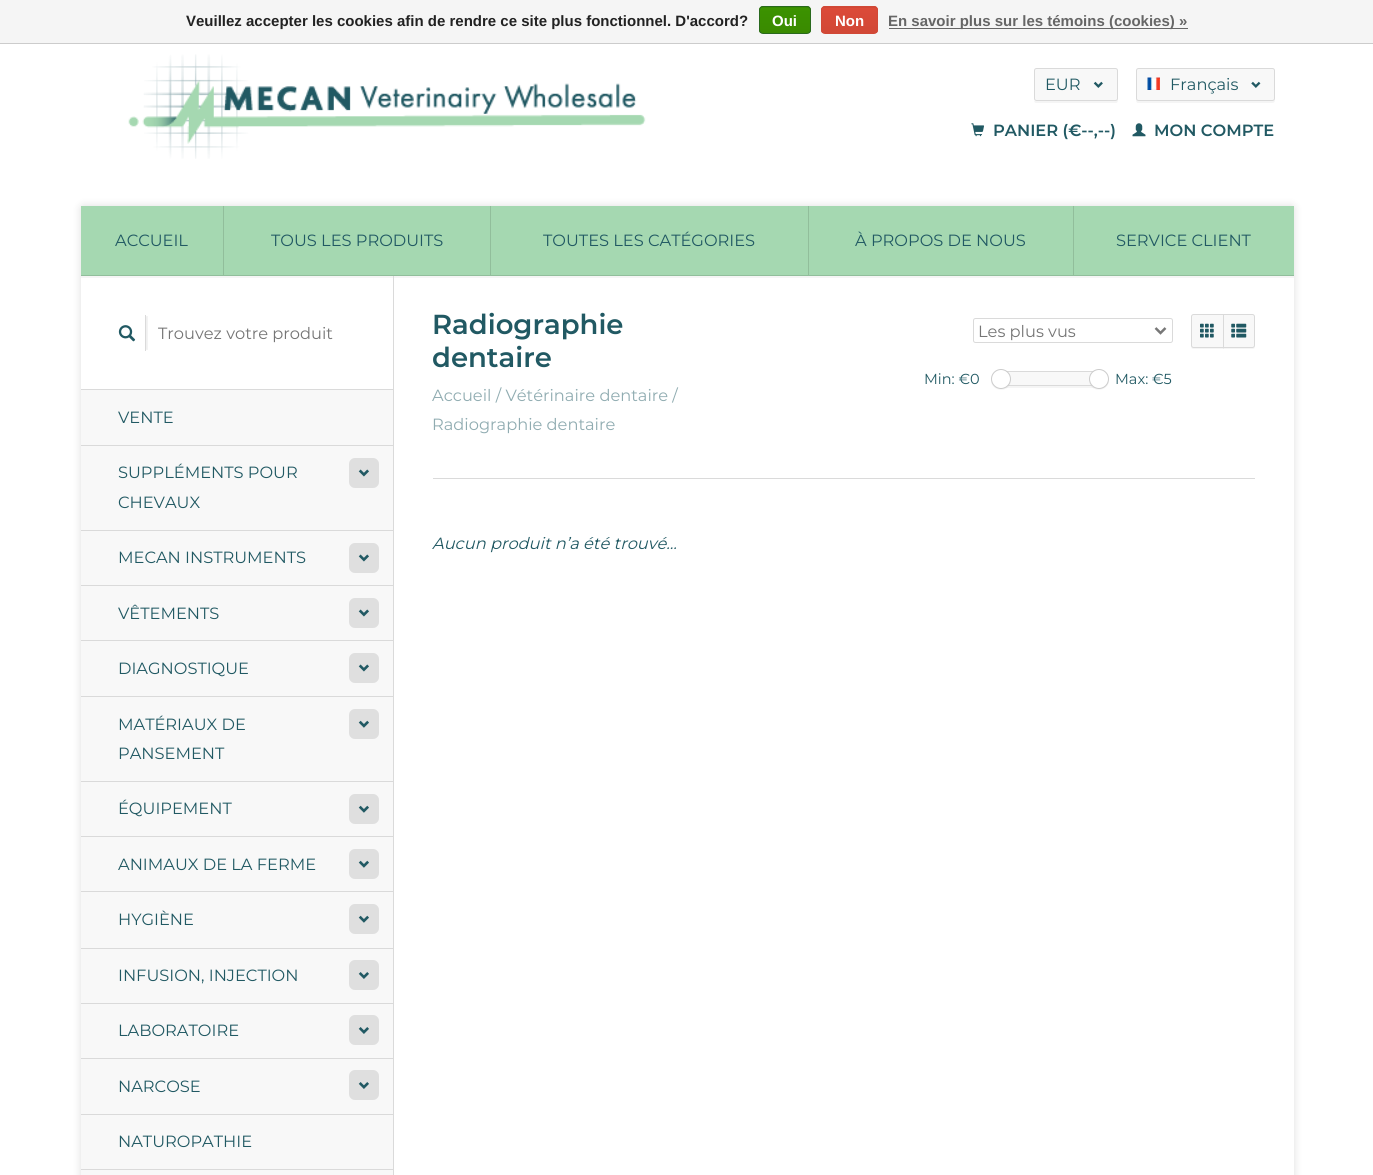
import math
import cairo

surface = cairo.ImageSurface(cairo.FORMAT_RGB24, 1373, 1175)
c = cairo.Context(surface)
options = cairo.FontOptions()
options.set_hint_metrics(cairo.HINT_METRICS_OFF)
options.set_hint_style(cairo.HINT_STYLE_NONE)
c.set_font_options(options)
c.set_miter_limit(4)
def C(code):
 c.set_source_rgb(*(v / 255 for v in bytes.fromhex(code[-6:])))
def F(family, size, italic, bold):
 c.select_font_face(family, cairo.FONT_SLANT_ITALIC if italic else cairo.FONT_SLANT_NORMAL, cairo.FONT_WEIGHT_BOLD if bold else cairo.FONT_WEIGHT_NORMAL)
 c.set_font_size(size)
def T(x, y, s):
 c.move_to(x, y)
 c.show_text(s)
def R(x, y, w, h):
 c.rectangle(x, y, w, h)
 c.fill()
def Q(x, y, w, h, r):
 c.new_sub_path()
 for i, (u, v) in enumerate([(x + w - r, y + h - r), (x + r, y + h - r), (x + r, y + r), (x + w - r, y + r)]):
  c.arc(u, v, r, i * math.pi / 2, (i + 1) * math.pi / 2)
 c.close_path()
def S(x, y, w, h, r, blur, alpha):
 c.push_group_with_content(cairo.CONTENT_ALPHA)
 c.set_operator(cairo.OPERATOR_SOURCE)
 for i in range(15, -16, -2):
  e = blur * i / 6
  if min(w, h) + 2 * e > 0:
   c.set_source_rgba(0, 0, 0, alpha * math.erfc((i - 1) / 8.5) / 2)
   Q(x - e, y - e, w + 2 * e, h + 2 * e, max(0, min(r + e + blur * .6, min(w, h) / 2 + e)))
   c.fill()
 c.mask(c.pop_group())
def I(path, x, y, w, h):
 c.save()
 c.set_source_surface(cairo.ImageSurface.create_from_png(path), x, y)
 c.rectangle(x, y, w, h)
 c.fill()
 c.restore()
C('ffffff')
c.paint()
C('f5f5f5')
R(0,0,1373,43)
C('cccccc')
R(0,43,1373,1)
F('Liberation Sans',15,0,1)
C('222222')
T(186,26,'Veuillez accepter les cookies afin de rendre ce site plus fonctionnel. D\'accord?')
c.save()
Q(759,6,52,28,4)
c.clip()
gradient = cairo.LinearGradient(785,-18,785,7.5)
gradient.add_color_stop_rgba(0,0.235,0.576,0,1)
gradient.add_color_stop_rgba(1,0.224,0.541,0,1)
c.set_source(gradient)
R(759,6,52,2)
gradient = cairo.LinearGradient(785,7.5,785,33)
gradient.add_color_stop_rgba(0,0.235,0.576,0,1)
gradient.add_color_stop_rgba(1,0.224,0.541,0,1)
c.set_source(gradient)
R(759,8,52,25)
c.restore()
Q(759.5,6.5,51,27,3.5)
C('29691d')
c.set_line_width(1)
c.stroke()
C('ffffff')
T(772,26,'Oui')
c.save()
Q(821,6,57,28,4)
c.clip()
gradient = cairo.LinearGradient(849,-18,849,7.5)
gradient.add_color_stop_rgba(0,0.863,0.29,0.22,1)
gradient.add_color_stop_rgba(1,0.82,0.282,0.212,1)
c.set_source(gradient)
R(821,6,57,2)
gradient = cairo.LinearGradient(849,7.5,849,33)
gradient.add_color_stop_rgba(0,0.863,0.29,0.22,1)
gradient.add_color_stop_rgba(1,0.82,0.282,0.212,1)
c.set_source(gradient)
R(821,8,57,25)
c.restore()
Q(821.5,6.5,56,27,3.5)
C('d14836')
c.stroke()
C('ffffff')
T(835,26,'Non')
C('666666')
R(889,28,299,1)
T(888,26,'En savoir plus sur les témoins (cookies) »')
I('1.png',128,54,518,105)
C('f5f5f5')
c.new_path()
c.move_to(1034,100)
c.curve_to(1034,102,1035,103,1036,103)
c.line_to(1116,103)
c.curve_to(1117,103,1118,102,1118,100)
c.line_to(1118,72)
c.line_to(1118,70)
c.line_to(1118,99)
c.curve_to(1118,100,1116,101,1115,101)
c.line_to(1036,101)
c.curve_to(1035,101,1034,101,1034,100)
c.close_path()
c.fill()
C('f8f8f8')
Q(1034.5,68.5,83,32,2)
c.fill_preserve()
C('dadada')
c.stroke()
F('Montserrat',16.25,0,0)
C('215963')
T(1045,90,'EUR')
I('2.png',1093,81,10,7)
C('f5f5f5')
c.new_path()
c.move_to(1136,70)
c.line_to(1136,100)
c.curve_to(1136,102,1137,103,1138,103)
c.line_to(1272,103)
c.curve_to(1274,103,1275,102,1275,100)
c.line_to(1275,99)
c.curve_to(1275,100,1274,101,1272,101)
c.line_to(1139,101)
c.curve_to(1137,101,1136,100,1136,99)
c.close_path()
c.fill()
C('f8f8f8')
Q(1136.5,68.5,138,32,2)
c.fill_preserve()
C('dadada')
c.stroke()
I('3.png',1147,77,13,13)
C('215963')
T(1170,90,'Français')
I('4.png',1251,81,10,7)
I('5.png',971,123,13,14)
F('Montserrat SemiBold',16.25,0,0)
T(993,136,'PANIER (€--,--)')
I('6.png',1132,123,14,14)
T(1154,136,'MON COMPTE')
C('000000')
S(81,206,1213,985,2.5,4.5,.13)
C('ffffff')
R(81,278,1213,897)
C('f5f5f5')
c.new_path()
c.move_to(81,208)
c.line_to(81,278)
c.line_to(1294,278)
c.line_to(1294,208)
c.line_to(1294,276)
c.line_to(81,276)
c.close_path()
c.fill()
C('91be9b')
R(81,275,1213,1)
C('a5d8b1')
R(81,206,142,69)
C('91be9b')
R(223,206,1,69)
F('Montserrat',16.25,0,0)
C('215963')
T(115,246,'ACCUEIL')
C('a5d8b1')
R(224,206,266,69)
C('91be9b')
R(490,206,1,69)
C('215963')
T(271,246,'TOUS LES PRODUITS')
C('a5d8b1')
R(491,206,317,69)
C('91be9b')
R(808,206,1,69)
C('215963')
T(543,246,'TOUTES LES CATÉGORIES')
C('a5d8b1')
R(809,206,264,69)
C('91be9b')
R(1073,206,1,69)
C('215963')
T(855,246,'À PROPOS DE NOUS')
C('a5d8b1')
R(1074,206,220,69)
C('215963')
T(1116,246,'SERVICE CLIENT')
C('dadada')
R(393,276,1,899)
c.save()
c.rectangle(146,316,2,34)
c.clip()
C('000000')
S(113,316,35,34,0,.5,.06)
c.restore()
R(145,315,1,36)
I('7.png',118,325,18,17)
C('757575')
T(158,339,'Trouvez votre produit')
C('f8f8f8')
R(81,390,312,55)
C('dadada')
R(81,389,312,1)
C('215963')
T(118,423,'VENTE')
C('f8f8f8')
R(81,446,312,84)
C('dadada')
R(81,445,312,1)
C('215963')
T(118,478,'SUPPLÉMENTS POUR')
T(118,508,'CHEVAUX')
C('dfdfdf')
Q(349,458,30,30,6)
c.fill()
I('8.png',358,469,11,8)
C('f8f8f8')
R(81,531,312,54)
C('dadada')
R(81,530,312,1)
C('215963')
T(118,563,'MECAN INSTRUMENTS')
C('dfdfdf')
Q(349,543,30,30,6)
c.fill()
I('8.png',358,554,11,8)
C('f8f8f8')
R(81,586,312,54)
C('dadada')
R(81,585,312,1)
C('215963')
T(118,619,'VÊTEMENTS')
C('dfdfdf')
Q(349,598,30,30,6)
c.fill()
I('8.png',358,609,11,8)
C('f8f8f8')
R(81,641,312,55)
C('dadada')
R(81,640,312,1)
C('215963')
T(118,674,'DIAGNOSTIQUE')
C('dfdfdf')
Q(349,653,30,30,6)
c.fill()
I('8.png',358,664,11,8)
C('f8f8f8')
R(81,697,312,84)
C('dadada')
R(81,696,312,1)
C('215963')
T(118,730,'MATÉRIAUX DE')
T(118,759,'PANSEMENT')
C('dfdfdf')
Q(349,709,30,30,6)
c.fill()
I('9.png',358,720,11,8)
C('f8f8f8')
R(81,782,312,54)
C('dadada')
R(81,781,312,1)
C('215963')
T(118,814,'ÉQUIPEMENT')
C('dfdfdf')
Q(349,794,30,30,6)
c.fill()
I('9.png',358,805,11,8)
C('f8f8f8')
R(81,837,312,54)
C('dadada')
R(81,836,312,1)
C('215963')
T(118,870,'ANIMAUX DE LA FERME')
C('dfdfdf')
Q(349,849,30,30,6)
c.fill()
I('9.png',358,860,11,8)
C('f8f8f8')
R(81,892,312,56)
C('dadada')
R(81,891,312,1)
C('215963')
T(118,925,'HYGIÈNE')
C('dfdfdf')
Q(349,904,30,30,6)
c.fill()
I('9.png',358,915,11,8)
C('f8f8f8')
R(81,949,312,54)
C('dadada')
R(81,948,312,1)
C('215963')
T(118,981,'INFUSION, INJECTION')
C('dfdfdf')
Q(349,960,30,30,6)
c.fill()
I('10.png',358,972,11,7)
C('f8f8f8')
R(81,1004,312,54)
C('dadada')
R(81,1003,312,1)
C('215963')
T(118,1036,'LABORATOIRE')
C('dfdfdf')
Q(349,1015,30,30,6)
c.fill()
I('10.png',358,1027,11,7)
C('f8f8f8')
R(81,1059,312,55)
C('dadada')
R(81,1058,312,1)
C('215963')
T(118,1092,'NARCOSE')
C('dfdfdf')
Q(349,1070,30,30,6)
c.fill()
I('10.png',358,1082,11,7)
C('f8f8f8')
R(81,1115,312,54)
C('dadada')
R(81,1114,312,1)
C('215963')
T(118,1147,'NATUROPATHIE')
C('f8f8f8')
R(81,1170,312,5)
C('dadada')
R(81,1169,312,1)
F('Montserrat SemiBold',27.5,0,0)
C('215963')
T(432,334,'Radiographie')
T(432,367,'dentaire')
F('Montserrat',16.25,0,0)
C('90acb1')
T(432,401,'Accueil / Vétérinaire dentaire /')
T(432,430,'Radiographie dentaire')
Q(973.5,318.5,199,24,2)
C('dadada')
c.stroke()
c.new_path()
c.move_to(1155.5,328)
c.line_to(1160.5,333)
c.line_to(1165.5,328)
C('777777')
c.set_line_width(2.5)
c.stroke()
C('757575')
T(978,337,'Les plus vus')
C('f5f5f5')
c.new_path()
c.move_to(1191,316.5)
c.line_to(1191,317.5)
c.line_to(1191,346.5)
c.curve_to(1191,348,1192,349,1193.5,349)
c.line_to(1224,349)
c.line_to(1224,315)
c.line_to(1224,347.5)
c.line_to(1194,347.5)
c.curve_to(1192.5,347.5,1191,346.5,1191,345)
c.close_path()
c.fill()
C('f8f8f8')
c.new_path()
c.move_to(1193.5,314.5)
c.line_to(1223.5,314.5)
c.line_to(1223.5,347.5)
c.line_to(1193.5,347.5)
c.curve_to(1192.5,347.5,1191.5,346.5,1191.5,345.5)
c.line_to(1191.5,316.5)
c.curve_to(1191.5,315.5,1192.5,314.5,1193.5,314.5)
c.close_path()
c.fill_preserve()
C('dadada')
c.set_line_width(1)
c.stroke()
I('11.png',1200,323,14,15)
c.set_source_rgba(0,0,0,0.04)
c.new_path()
c.move_to(1223,347.5)
c.line_to(1223,349)
c.line_to(1252.5,349)
c.curve_to(1254,349,1255,348,1255,346.5)
c.line_to(1255,345)
c.curve_to(1255,346.5,1254,347.5,1252.5,347.5)
c.close_path()
c.fill()
C('f8f8f8')
c.new_path()
c.move_to(1223.5,314.5)
c.line_to(1252.5,314.5)
c.curve_to(1253.5,314.5,1254.5,315.5,1254.5,316.5)
c.line_to(1254.5,345.5)
c.curve_to(1254.5,346.5,1253.5,347.5,1252.5,347.5)
c.line_to(1223.5,347.5)
c.close_path()
c.fill_preserve()
C('dadada')
c.stroke()
I('12.png',1231,323,16,15)
F('Montserrat',14.5,0,0)
C('215963')
T(924,384,'Min: €0')
C('f5f5f5')
R(1003,386,97,2)
C('f8f8f8')
R(1008,372,84,13)
c.rectangle(1003.5,371.5,96,14)
C('dadada')
c.stroke()
c.set_source_rgba(0,0,0,0.04)
c.new_path()
c.move_to(991.5,377.5)
c.curve_to(987.5,391,1009,395,1011,381.5)
c.curve_to(1007.5,393,989.5,389.5,991.5,377.5)
c.close_path()
c.fill()
C('ffffff')
c.arc(1001,379,9.5,0,2 * math.pi)
c.fill_preserve()
C('cbcbcb')
c.stroke()
c.set_source_rgba(0,0,0,0.04)
c.new_path()
c.move_to(1089,381.5)
c.curve_to(1091,395,1112.5,391,1108.5,377.5)
c.curve_to(1110.5,389.5,1092.5,393,1089,381.5)
c.close_path()
c.fill()
C('ffffff')
c.arc(1099,379,9.5,0,2 * math.pi)
c.fill_preserve()
C('cbcbcb')
c.stroke()
C('215963')
T(1115,384,'Max: €5')
C('dadada')
R(433,478,822,1)
F('Montserrat',16.25,1,0)
C('215963')
T(432,549,'Aucun produit n’a été trouvé...')
surface.write_to_png('o.png')
